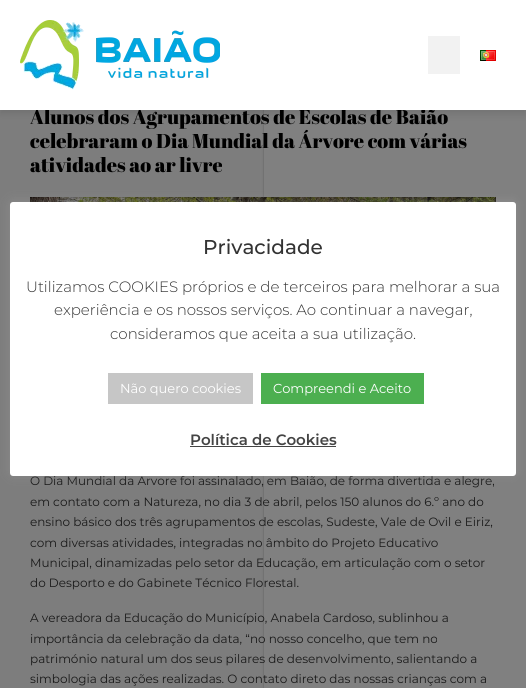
import math
import cairo

surface = cairo.ImageSurface(cairo.FORMAT_RGB24, 526, 688)
c = cairo.Context(surface)
options = cairo.FontOptions()
options.set_hint_metrics(cairo.HINT_METRICS_OFF)
options.set_hint_style(cairo.HINT_STYLE_NONE)
c.set_font_options(options)
c.set_miter_limit(4)
def C(code):
 c.set_source_rgb(*(v / 255 for v in bytes.fromhex(code[-6:])))
def F(family, size, italic, bold):
 c.select_font_face(family, cairo.FONT_SLANT_ITALIC if italic else cairo.FONT_SLANT_NORMAL, cairo.FONT_WEIGHT_BOLD if bold else cairo.FONT_WEIGHT_NORMAL)
 c.set_font_size(size)
def T(x, y, s):
 c.move_to(x, y)
 c.show_text(s)
def R(x, y, w, h):
 c.rectangle(x, y, w, h)
 c.fill()
def Q(x, y, w, h, r):
 c.new_sub_path()
 for i, (u, v) in enumerate([(x + w - r, y + h - r), (x + r, y + h - r), (x + r, y + r), (x + w - r, y + r)]):
  c.arc(u, v, r, i * math.pi / 2, (i + 1) * math.pi / 2)
 c.close_path()
def S(x, y, w, h, r, blur, alpha):
 c.push_group_with_content(cairo.CONTENT_ALPHA)
 c.set_operator(cairo.OPERATOR_SOURCE)
 for i in range(15, -16, -2):
  e = blur * i / 6
  if min(w, h) + 2 * e > 0:
   c.set_source_rgba(0, 0, 0, alpha * math.erfc((i - 1) / 8.5) / 2)
   Q(x - e, y - e, w + 2 * e, h + 2 * e, max(0, min(r + e + blur * .6, min(w, h) / 2 + e)))
   c.fill()
 c.mask(c.pop_group())
def I(path, x, y, w, h):
 c.save()
 c.set_source_surface(cairo.ImageSurface.create_from_png(path), x, y)
 c.rectangle(x, y, w, h)
 c.fill()
 c.restore()
C('808080')
c.paint()
I('1.png',0,110,264,578)
C('000000')
S(0,4,526,110,0,4,.1)
F('Abril Fatface',20,0,0)
C('000000')
T(30,124,'Alunos dos Agrupamentos de Escolas de Baião')
C('ffffff')
R(0,0,526,110)
I('2.png',20,20,200,70)
C('f2f2f2')
R(428,36,32,38)
I('3.png',480,50,16,11)
C('000000')
T(30,148,'celebraram o Dia Mundial da Árvore com várias')
T(30,172,'atividades ao ar livre')
I('4.png',30,197,466,5)
F('Montserrat',12,0,0)
C('1a1a1a')
T(30,485,'O Dia Mundial da Árvore foi assinalado, em Baião, de forma divertida e alegre,')
T(30,506,'em contato com a Natureza, no dia 3 de abril, pelos 150 alunos do 6.º ano do')
T(30,526,'ensino básico dos três agrupamentos de escolas, Sudeste, Vale de Ovil e Eiriz,')
T(30,547,'com diversas atividades, integradas no âmbito do Projeto Educativo')
T(30,567,'Municipal, dinamizadas pelo setor da Educação, em articulação com o setor')
T(30,587,'do Desporto e do Gabinete Técnico Florestal.')
T(30,622,'A vereadora da Educação do Município, Anabela Cardoso, sublinhou a')
T(30,643,'importância da celebração da data, “no nosso concelho, que tem no')
T(30,663,'património natural um dos seus pilares de desenvolvimento, salientando a')
T(30,683,'simbologia das ações realizadas. O contato direto das nossas crianças com a')
C('acabab')
S(10,201,506,274,3,5,.3)
C('ffffff')
Q(10,202,506,274,3)
c.fill()
F('Montserrat Medium',20,0,0)
C('333333')
T(203,254,'Privacidade')
F('Montserrat Light',15,0,0)
T(26,292,'Utilizamos COOKIES próprios e de terceiros para melhorar a sua')
T(54,315,'experiência e os nossos serviços. Ao continuar a navegar,')
T(110,339,'consideramos que aceita a sua utilização.')
C('c6c6c6')
R(108,373,145,31)
F('Montserrat',13,0,0)
C('ffffff')
T(120,393,'Não quero cookies')
C('4caf50')
R(261,373,163,31)
C('ffffff')
T(273,393,'Compreendi e Aceito')
F('Montserrat SemiBold',15,0,0)
C('444444')
T(190,445,'Política de Cookies')
R(190,446,146,1)
surface.write_to_png('o.png')
